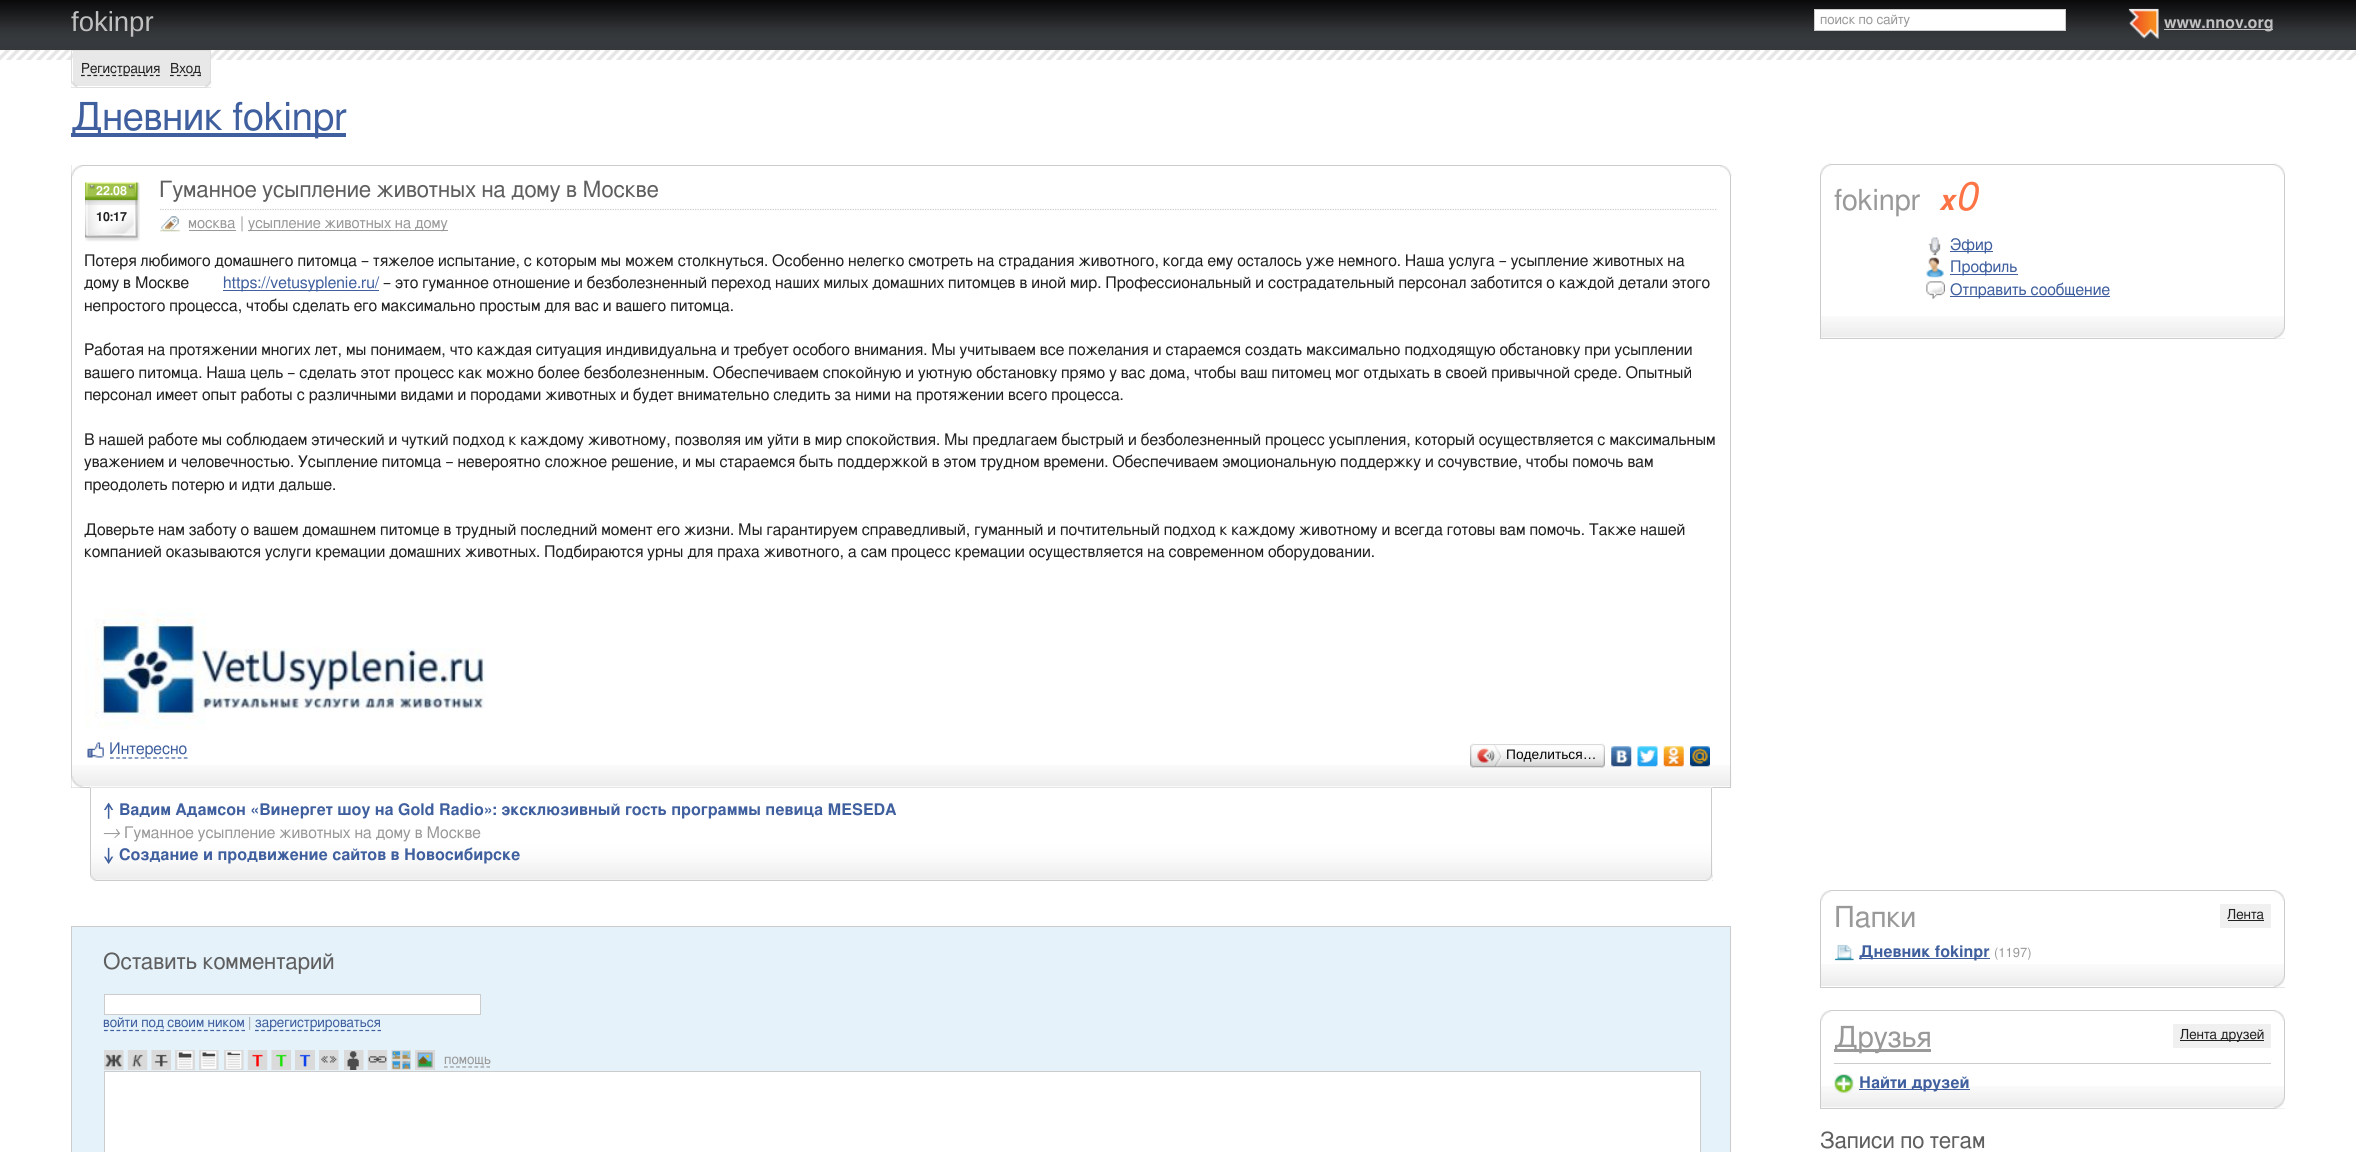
import math
import cairo

surface = cairo.ImageSurface(cairo.FORMAT_RGB24, 2356, 1152)
c = cairo.Context(surface)
options = cairo.FontOptions()
options.set_hint_metrics(cairo.HINT_METRICS_OFF)
options.set_hint_style(cairo.HINT_STYLE_NONE)
c.set_font_options(options)
c.set_miter_limit(4)
def C(code):
 c.set_source_rgb(*(v / 255 for v in bytes.fromhex(code[-6:])))
def F(family, size, italic, bold):
 c.select_font_face(family, cairo.FONT_SLANT_ITALIC if italic else cairo.FONT_SLANT_NORMAL, cairo.FONT_WEIGHT_BOLD if bold else cairo.FONT_WEIGHT_NORMAL)
 c.set_font_size(size)
def T(x, y, s):
 c.move_to(x, y)
 c.show_text(s)
def R(x, y, w, h):
 c.rectangle(x, y, w, h)
 c.fill()
def I(path, x, y, w, h):
 c.save()
 c.set_source_surface(cairo.ImageSurface.create_from_png(path), x, y)
 c.rectangle(x, y, w, h)
 c.fill()
 c.restore()
C('ffffff')
c.paint()
I('1.png',0,0,2356,50)
F('Liberation Sans',27.5,0,0)
C('c0c0c0')
T(71,31,'fokinpr')
C('ffffff')
c.rectangle(1814.5,9.5,251,21)
c.fill_preserve()
C('cccccc')
c.set_line_width(1)
c.stroke()
F('FreeSans',13.5,0,0)
C('999999')
T(1820,24,'поиск по сайту')
I('2.png',2128,8,31,31)
C('c0c0c0')
R(2164,29,109,1)
F('FreeSans SemiBold',16,0,0)
T(2164,28,'www.nnov.org')
I('3.png',0,50,2356,10)
c.rectangle(71.5,50.5,139,37)
C('dedede')
c.stroke()
C('e8e8e8')
R(73,51,137,35)
c.new_path()
c.move_to(81,75.5)
c.line_to(160,75.5)
C('222222')
c.set_line_width(1.2)
c.set_dash([3.75,2.5])
c.stroke()
F('FreeSans',13.75,0,0)
T(81,73,'Регистрация')
c.new_path()
c.move_to(170,75.5)
c.line_to(201,75.5)
c.set_dash([3.75,3.12])
c.stroke()
T(170,73,'Вход')
I('4.png',71,81,7,7)
I('5.png',205,81,7,7)
C('3f5f9e')
R(71,133,275,4)
F('FreeSans',38.5,0,0)
T(71,130,'Дневник fokinpr')
I('6.png',72,765,1660,22)
c.rectangle(71.5,165.5,1659,622)
C('cccccc')
c.set_line_width(1)
c.set_dash([])
c.stroke()
I('7.png',71,165,12,12)
I('8.png',1720,165,12,11)
I('9.png',85,182,55,60)
F('FreeSans SemiBold',12.5,0,0)
C('ffffff')
T(96,195,'22.08')
C('222222')
T(96,221,'10:17')
c.new_path()
c.move_to(160,209.5)
c.line_to(1717.5,209.5)
C('cccccc')
c.set_line_width(1.2)
c.set_dash([1.25,1.25])
c.stroke()
F('FreeSans',22.4,0,0)
C('5f5f5f')
T(159,197,'Гуманное усыпление животных на дому в Москве')
I('10.png',160,216,20,16)
F('FreeSans',15,0,0)
C('999999')
T(188,228,'москва')
R(189,230,47,1)
F('FreeSans',16,0,0)
T(240,228,'|')
R(248,230,200,1)
F('FreeSans',15,0,0)
T(248,228,'усыпление животных на дому')
F('FreeSans',16,0,0)
C('222222')
T(84,266,'Потеря любимого домашнего питомца – тяжелое испытание, с которым мы можем столкнуться. Особенно нелегко смотреть на страдания животного, когда ему осталось уже немного. Наша услуга – усыпление животных на')
T(84,288,'дому в Москве')
C('3f5f9e')
R(223,290,156,1)
T(223,288,'https://vetusyplenie.ru/')
C('222222')
T(383,288,'– это гуманное отношение и безболезненный переход наших милых домашних питомцев в иной мир. Профессиональный и сострадательный персонал заботится о каждой детали этого')
T(84,311,'непростого процесса, чтобы сделать его максимально простым для вас и вашего питомца.')
T(84,355,'Работая на протяжении многих лет, мы понимаем, что каждая ситуация индивидуальна и требует особого внимания. Мы учитываем все пожелания и стараемся создать максимально подходящую обстановку при усыплении')
T(84,378,'вашего питомца. Наша цель – сделать этот процесс как можно более безболезненным. Обеспечиваем спокойную и уютную обстановку прямо у вас дома, чтобы ваш питомец мог отдыхать в своей привычной среде. Опытный')
T(84,400,'персонал имеет опыт работы с различными видами и породами животных и будет внимательно следить за ними на протяжении всего процесса.')
T(84,445,'В нашей работе мы соблюдаем этический и чуткий подход к каждому животному, позволяя им уйти в мир спокойствия. Мы предлагаем быстрый и безболезненный процесс усыпления, который осуществляется с максимальным')
T(84,467,'уважением и человечностью. Усыпление питомца – невероятно сложное решение, и мы стараемся быть поддержкой в этом трудном времени. Обеспечиваем эмоциональную поддержку и сочувствие, чтобы помочь вам')
T(84,490,'преодолеть потерю и идти дальше.')
T(84,535,'Доверьте нам заботу о вашем домашнем питомце в трудный последний момент его жизни. Мы гарантируем справедливый, гуманный и почтительный подход к каждому животному и всегда готовы вам помочь. Также нашей')
T(84,557,'компанией оказываются услуги кремации домашних животных. Подбираются урны для праха животного, а сам процесс кремации осуществляется на современном оборудовании.')
I('11.png',85,609,400,120)
I('12.png',87,742,17,16)
c.new_path()
c.move_to(110,758)
c.line_to(187.5,758)
C('3f5f9e')
c.set_dash([3.75,2.4])
c.stroke()
T(109,754,'Интересно')
I('13.png',1473,744,129,24)
I('14.png',1470,743,4,25)
I('15.png',1477,745,26,22)
F('Liberation Sans',13.75,0,0)
C('000000')
T(1506,759,'Поделиться…')
I('16.png',1601,743,4,25)
I('17.png',1611,746,21,21)
I('18.png',1637,746,21,21)
I('19.png',1663,746,21,21)
I('20.png',1690,746,20,21)
I('21.png',71,776,12,12)
I('22.png',90,787,1623,93)
C('cccccc')
R(1711,788,1,93)
R(90,880,1623,1)
R(90,788,1,93)
F('FreeSans SemiBold',18,1,0)
C('3f5f9e')
T(103,815,'↑')
F('FreeSans SemiBold',16,0,0)
T(119,815,'Вадим Адамсон «Винергет шоу на Gold Radio»: эксклюзивный гость программы певица MESEDA')
F('FreeSans',18,1,0)
C('999999')
T(103,838,'→')
F('FreeSans',16,0,0)
T(124,838,'Гуманное усыпление животных на дому в Москве')
F('FreeSans SemiBold',18,1,0)
C('3f5f9e')
T(103,860,'↓')
F('FreeSans SemiBold',16,0,0)
T(119,860,'Создание и продвижение сайтов в Новосибирске')
I('23.png',90,875,6,7)
I('24.png',1706,875,7,7)
C('e5f2fa')
c.rectangle(71.5,926.5,1659,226)
c.fill_preserve()
C('cccccc')
c.set_line_width(1)
c.set_dash([])
c.stroke()
F('FreeSans',22.4,0,0)
C('5f5f5f')
T(103,969,'Оставить комментарий')
C('ffffff')
c.rectangle(104.5,994.5,376,20)
c.fill_preserve()
C('cccccc')
c.stroke()
F('FreeSans',13.75,0,0)
C('3f5f9e')
T(103,1027,'войти под своим ником')
c.new_path()
c.move_to(104,1030.5)
c.line_to(245,1030.5)
c.set_line_width(1.2)
c.set_dash([3.75,2.5])
c.stroke()
C('999999')
T(248,1027,'|')
c.new_path()
c.move_to(255,1030.5)
c.line_to(381,1030.5)
C('3f5f9e')
c.set_dash([3.75,2.38])
c.stroke()
T(255,1027,'зарегистрироваться')
I('25.png',104,1050,20,20)
I('26.png',127,1050,21,20)
I('27.png',151,1050,20,20)
I('28.png',175,1050,20,20)
I('29.png',199,1050,20,20)
I('30.png',224,1050,20,20)
I('31.png',247,1050,21,20)
I('32.png',271,1050,20,20)
I('33.png',295,1050,20,20)
I('34.png',319,1050,20,20)
I('35.png',344,1050,20,20)
I('36.png',367,1050,21,20)
I('37.png',391,1050,20,20)
I('38.png',415,1050,20,20)
C('999999')
T(444,1064,'помощь')
c.new_path()
c.move_to(444,1067)
c.line_to(490,1067)
c.set_dash([3.75,2.33])
c.stroke()
C('ffffff')
c.rectangle(104.5,1071.5,1596,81)
c.fill_preserve()
C('cccccc')
c.set_line_width(1)
c.set_dash([])
c.stroke()
I('39.png',1821,316,463,22)
c.rectangle(1820.5,164.5,464,174)
c.stroke()
I('40.png',1820,163,12,12)
I('41.png',2273,163,12,12)
F('FreeSans',29,0,0)
C('999999')
T(1834,210,'fokinpr')
F('FreeSans SemiBold',28,1,0)
C('fc7445')
T(1939,210,'x')
F('FreeSans',40,1,0)
T(1955,210,'0')
I('42.png',1928,237,13,19)
C('3f5f9e')
R(1950,251,43,1)
F('FreeSans',16,0,0)
T(1950,250,'Эфир')
I('43.png',1926,257,18,21)
R(1950,274,68,1)
T(1950,272,'Профиль')
I('44.png',1926,281,19,18)
R(1950,296,160,1)
T(1950,295,'Отправить сообщение')
I('45.png',2273,327,12,12)
I('46.png',1821,964,463,22)
c.rectangle(1820.5,890.5,464,97)
C('cccccc')
c.stroke()
I('47.png',1820,890,11,12)
I('48.png',2274,890,11,11)
F('FreeSans',29,0,0)
C('999999')
T(1834,927,'Папки')
C('f0f0f0')
R(2220,904,51,24)
F('FreeSans',13.75,0,0)
C('222222')
T(2227,919,'Лента')
R(2228,920,36,1)
I('49.png',1834,944,20,17)
C('3f5f9e')
R(1859,958,131,1)
F('FreeSans SemiBold',16,0,0)
T(1859,957,'Дневник fokinpr')
F('FreeSans',13,0,0)
C('999999')
T(1994,957,'(1197)')
I('50.png',2273,976,12,12)
I('39.png',1821,1086,463,22)
c.rectangle(1820.5,1010.5,464,98)
C('cccccc')
c.stroke()
I('47.png',1820,1010,11,12)
I('48.png',2274,1010,11,11)
C('9a9a9a')
R(1834,1049,97,3)
F('FreeSans',29,0,0)
C('999999')
T(1834,1047,'Друзья')
C('f0f0f0')
R(2173,1024,98,24)
C('222222')
R(2180,1040,84,1)
F('FreeSans',13.75,0,0)
T(2180,1039,'Лента друзей')
C('cccccc')
R(1834,1063,437,1)
I('51.png',1834,1074,20,20)
C('3f5f9e')
R(1859,1089,111,1)
F('FreeSans SemiBold',16,0,0)
T(1859,1088,'Найти друзей')
I('45.png',2273,1097,12,12)
F('FreeSans',22.4,0,0)
C('5f5f5f')
T(1820,1148,'Записи по тегам')
surface.write_to_png('o.png')
